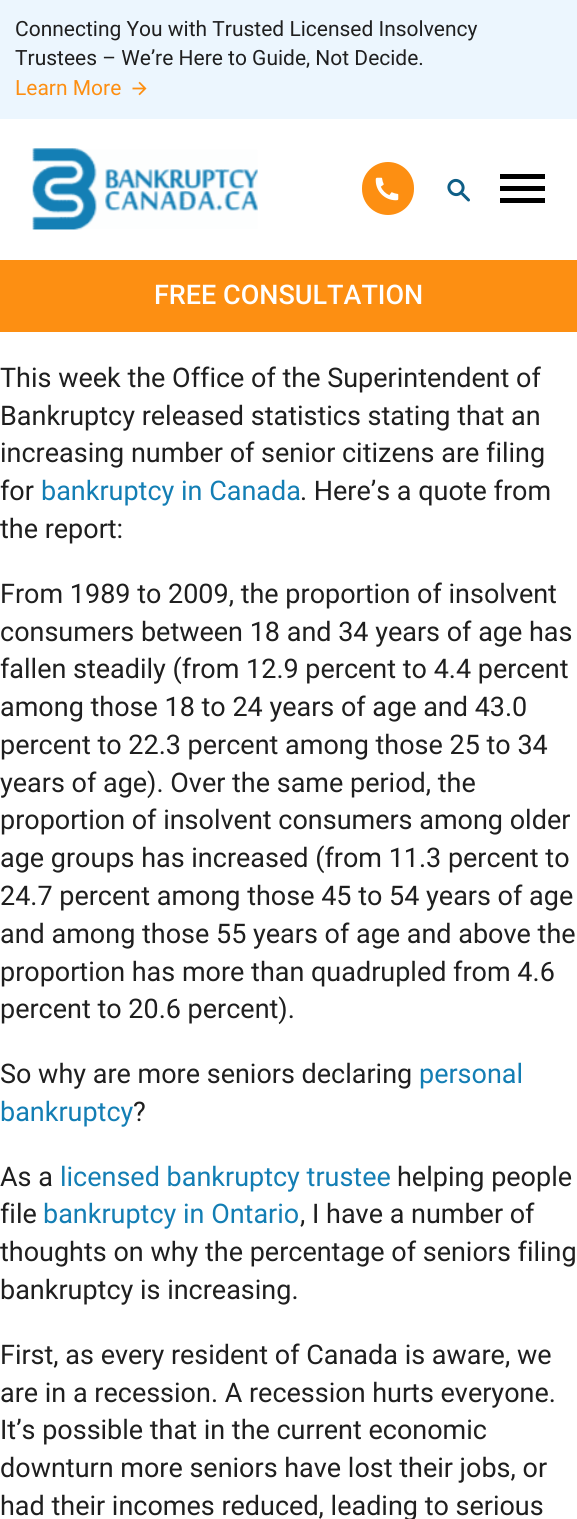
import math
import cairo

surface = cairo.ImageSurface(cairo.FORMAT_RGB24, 577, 1519)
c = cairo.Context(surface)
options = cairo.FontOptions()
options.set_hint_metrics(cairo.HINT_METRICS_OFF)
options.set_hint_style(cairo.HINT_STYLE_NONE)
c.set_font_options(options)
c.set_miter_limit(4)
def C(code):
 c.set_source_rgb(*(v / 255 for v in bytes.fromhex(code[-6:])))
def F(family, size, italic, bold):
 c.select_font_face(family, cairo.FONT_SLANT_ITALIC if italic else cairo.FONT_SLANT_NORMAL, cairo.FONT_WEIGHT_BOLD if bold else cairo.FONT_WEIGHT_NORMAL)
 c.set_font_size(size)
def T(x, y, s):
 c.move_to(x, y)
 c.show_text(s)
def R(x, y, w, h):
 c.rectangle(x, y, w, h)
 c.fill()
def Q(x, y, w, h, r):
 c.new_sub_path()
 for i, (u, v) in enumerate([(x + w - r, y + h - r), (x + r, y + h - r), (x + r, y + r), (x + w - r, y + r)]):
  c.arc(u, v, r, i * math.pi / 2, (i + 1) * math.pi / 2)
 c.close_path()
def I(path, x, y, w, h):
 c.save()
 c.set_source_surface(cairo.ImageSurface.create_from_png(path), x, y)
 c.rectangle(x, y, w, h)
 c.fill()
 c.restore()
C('ffffff')
c.paint()
C('ecf6fe')
R(0,0,577,119)
F('Roboto',21,0,0)
C('1f1f1f')
T(15,36,'Connecting You with Trusted Licensed Insolvency')
T(15,65,'Trustees – We’re Here to Guide, Not Decide.')
C('fd8f12')
T(15,95,'Learn More')
I('1.png',132,81,15,15)
I('2.png',32,148,226,82)
Q(362,162,52,53,26)
c.fill()
I('3.png',375,177,24,24)
c.new_path()
c.move_to(451,182.5)
c.curve_to(457.5,176,467.5,186,461,192.5)
c.curve_to(454.5,199,444.5,189,451,182.5)
c.close_path()
C('0e5e86')
c.set_line_width(3)
c.stroke()
c.new_path()
c.move_to(462.5,194)
c.line_to(468.5,200)
c.set_line_cap(cairo.LINE_CAP_ROUND)
c.stroke()
C('000000')
R(500,174,45,5)
R(500,186,45,5)
R(500,198,45,5)
C('fd8f12')
R(0,260,577,72)
F('Roboto Medium',27,0,0)
C('ffffff')
T(154,304,'FREE CONSULTATION')
F('Roboto',27,0,0)
C('1f1f1f')
T(0,387,'This week the Office of the Superintendent of')
T(0,425,'Bankruptcy released statistics stating that an')
T(0,462,'increasing number of senior citizens are filing')
T(0,500,'for')
C('137eb4')
T(41,500,'bankruptcy in Canada')
C('1f1f1f')
T(300,500,'. Here’s a quote from')
T(0,538,'the report:')
T(0,603,'From 1989 to 2009, the proportion of insolvent')
T(0,641,'consumers between 18 and 34 years of age has')
T(0,678,'fallen steadily (from 12.9 percent to 4.4 percent')
T(0,716,'among those 18 to 24 years of age and 43.0')
T(0,754,'percent to 22.3 percent among those 25 to 34')
T(0,792,'years of age). Over the same period, the')
T(0,829,'proportion of insolvent consumers among older')
T(0,867,'age groups has increased (from 11.3 percent to')
T(0,905,'24.7 percent among those 45 to 54 years of age')
T(0,943,'and among those 55 years of age and above the')
T(0,981,'proportion has more than quadrupled from 4.6')
T(0,1018,'percent to 20.6 percent).')
T(0,1083,'So why are more seniors declaring')
C('137eb4')
T(419,1083,'personal')
T(0,1121,'bankruptcy')
C('1f1f1f')
T(133,1121,'?')
T(0,1186,'As a')
C('137eb4')
T(60,1186,'licensed bankruptcy trustee')
C('1f1f1f')
T(397,1186,'helping people')
T(0,1223,'file')
C('137eb4')
T(43,1223,'bankruptcy in Ontario')
C('1f1f1f')
T(300,1223,', I have a number of')
T(0,1261,'thoughts on why the percentage of seniors filing')
T(0,1299,'bankruptcy is increasing.')
T(0,1364,'First, as every resident of Canada is aware, we')
T(0,1402,'are in a recession. A recession hurts everyone.')
T(0,1439,'It’s possible that in the current economic')
T(0,1477,'downturn more seniors have lost their jobs, or')
T(0,1515,'had their incomes reduced, leading to serious')
surface.write_to_png('o.png')
